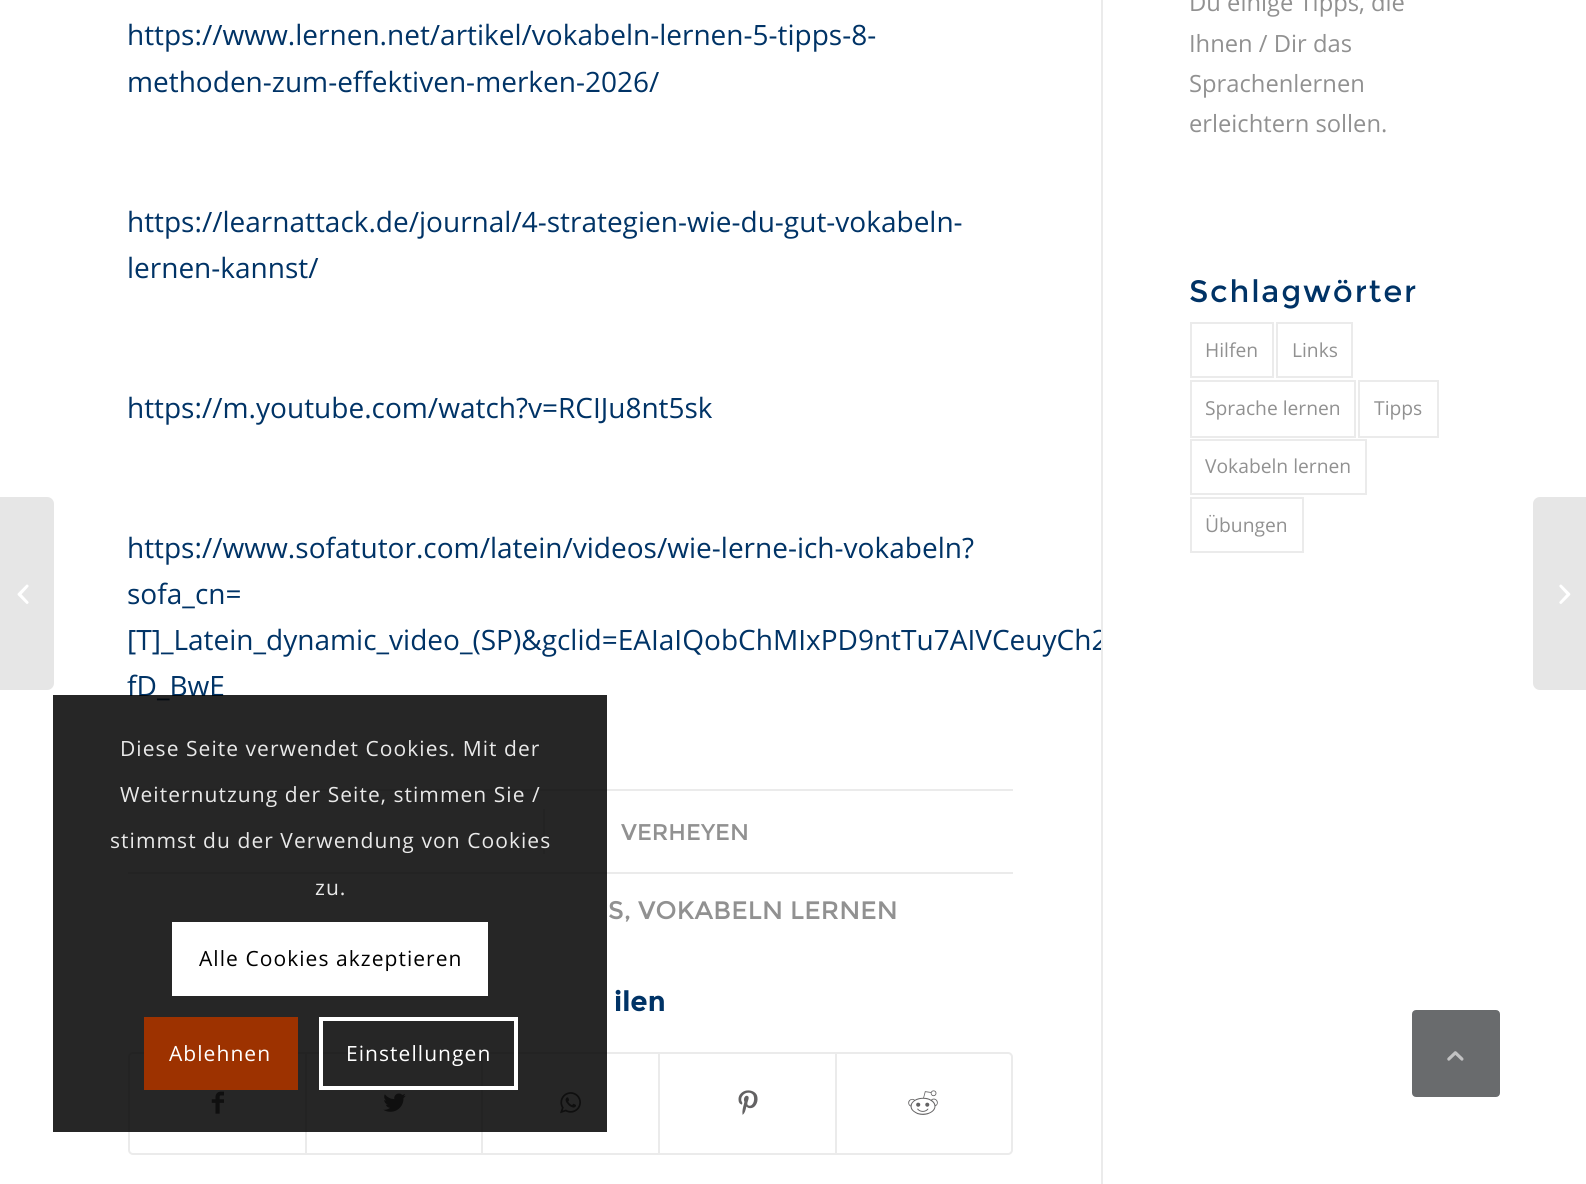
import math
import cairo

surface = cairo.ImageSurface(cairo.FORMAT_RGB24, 1586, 1184)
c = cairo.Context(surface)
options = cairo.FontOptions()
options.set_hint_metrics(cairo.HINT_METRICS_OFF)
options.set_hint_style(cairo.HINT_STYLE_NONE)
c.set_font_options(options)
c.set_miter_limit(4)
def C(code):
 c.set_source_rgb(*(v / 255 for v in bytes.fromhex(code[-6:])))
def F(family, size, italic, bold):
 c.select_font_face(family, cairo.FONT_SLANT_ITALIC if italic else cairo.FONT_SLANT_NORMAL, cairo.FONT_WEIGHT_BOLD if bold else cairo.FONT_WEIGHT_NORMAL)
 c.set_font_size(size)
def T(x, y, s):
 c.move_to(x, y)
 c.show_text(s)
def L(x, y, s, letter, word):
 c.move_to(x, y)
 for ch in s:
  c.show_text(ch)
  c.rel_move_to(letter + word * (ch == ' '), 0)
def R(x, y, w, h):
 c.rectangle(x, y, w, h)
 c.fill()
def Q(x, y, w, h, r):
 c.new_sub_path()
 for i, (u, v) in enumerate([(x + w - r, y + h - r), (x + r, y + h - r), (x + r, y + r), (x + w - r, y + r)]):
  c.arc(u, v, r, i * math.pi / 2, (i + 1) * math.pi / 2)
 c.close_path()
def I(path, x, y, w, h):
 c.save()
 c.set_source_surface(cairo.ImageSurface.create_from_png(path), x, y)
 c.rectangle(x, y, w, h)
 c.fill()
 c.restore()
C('ffffff')
c.paint()
C('e6e6e6')
c.new_path()
c.move_to(0,497)
c.line_to(47,497)
c.curve_to(51,497,54,500,54,504)
c.line_to(54,683)
c.curve_to(54,687,51,690,47,690)
c.line_to(0,690)
c.close_path()
c.fill()
I('1.png',17,584,12,20)
C('ebebeb')
R(1101,0,2,1184)
F('Open Sans',28,0,0)
C('003366')
T(127,45,'https://www.lernen.net/artikel/vokabeln-lernen-5-tipps-8-')
T(127,92,'methoden-zum-effektiven-merken-2026/')
T(127,232,'https://learnattack.de/journal/4-strategien-wie-du-gut-vokabeln-')
T(127,278,'lernen-kannst/')
T(127,418,'https://m.youtube.com/watch?v=RCIJu8nt5sk')
T(127,558,'https://www.sofatutor.com/latein/videos/wie-lerne-ich-vokabeln?')
T(127,604,'sofa_cn=')
c.save()
c.rectangle(128,0,973,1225)
c.clip()
T(127,650,'[T]_Latein_dynamic_video_(SP)&gclid=EAIaIQobChMIxPD9ntTu7AIVCeuyCh2')
c.restore()
T(127,696,'fD_BwE')
C('ebebeb')
R(128,789,885,2)
R(128,872,885,2)
R(543,809,2,45)
F('Montserrat',22.75,0,0)
C('919191')
T(621,840,'VERHEYEN')
F('Montserrat',25.25,0,0)
T(608,919,'S, VOKABELN LERNEN')
F('Montserrat',28,0,1)
C('003366')
T(614,1011,'ilen')
Q(129,1053,883,101,4)
C('ebebeb')
c.stroke()
I('2.png',211,1091,13,23)
R(305,1054,2,99)
I('3.png',383,1093,23,19)
R(481,1054,2,99)
I('4.png',560,1092,21,22)
R(658,1054,2,99)
I('5.png',738,1090,20,25)
R(835,1054,2,99)
I('6.png',908,1090,30,25)
F('Open Sans',23.75,0,0)
C('919191')
T(1189,11,'Du einige Tipps, die')
T(1189,52,'Ihnen / Dir das')
T(1189,92,'Sprachenlernen')
T(1189,132,'erleichtern sollen.')
F('Montserrat',30.75,0,0)
C('003366')
L(1189,302,'Schlagwörter',1.75,0)
c.rectangle(1191,323,82,54)
C('ebebeb')
c.stroke()
F('Open Sans',19.25,0,0)
C('919191')
T(1205,357,'Hilfen')
c.rectangle(1277,323,75,54)
C('ebebeb')
c.stroke()
C('919191')
T(1292,357,'Links')
c.rectangle(1191,381,164,56)
C('ebebeb')
c.stroke()
C('919191')
T(1205,415,'Sprache lernen')
c.rectangle(1359,381,79,56)
C('ebebeb')
c.stroke()
C('919191')
T(1374,415,'Tipps')
c.rectangle(1191,440,175,54)
C('ebebeb')
c.stroke()
C('919191')
T(1205,473,'Vokabeln lernen')
c.rectangle(1191,498,112,54)
C('ebebeb')
c.stroke()
C('919191')
T(1205,532,'Übungen')
C('e6e6e6')
c.new_path()
c.move_to(1540,497)
c.line_to(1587,497)
c.line_to(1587,690)
c.line_to(1540,690)
c.curve_to(1536,690,1533,687,1533,683)
c.line_to(1533,504)
c.curve_to(1533,500,1536,497,1540,497)
c.close_path()
c.fill()
I('7.png',1559,584,12,20)
c.set_source_rgba(0,0,0,0.85)
R(53,695,554,437)
F('Open Sans',21,0,0)
C('e9e9e9')
L(120,756,'Diese Seite verwendet Cookies. Mit der',1.05,0)
L(120,802,'Weiternutzung der Seite, stimmen Sie /',1.05,0)
L(110,848,'stimmst du der Verwendung von Cookies',1.05,0)
L(315,895,'zu.',1.05,0)
C('ffffff')
R(172,922,316,74)
C('000000')
L(199,966,'Alle Cookies akzeptieren',1.05,0)
C('9d3200')
R(144,1017,154,73)
C('ffffff')
L(169,1061,'Ablehnen',1.05,0)
c.rectangle(321,1019,195,69)
c.set_line_width(4)
c.stroke()
L(346,1061,'Einstellungen',1.05,0)
C('696b6d')
Q(1413,1011,86,85,3)
c.fill_preserve()
c.set_line_width(2)
c.stroke()
I('8.png',1447,1051,17,10)
surface.write_to_png('o.png')
